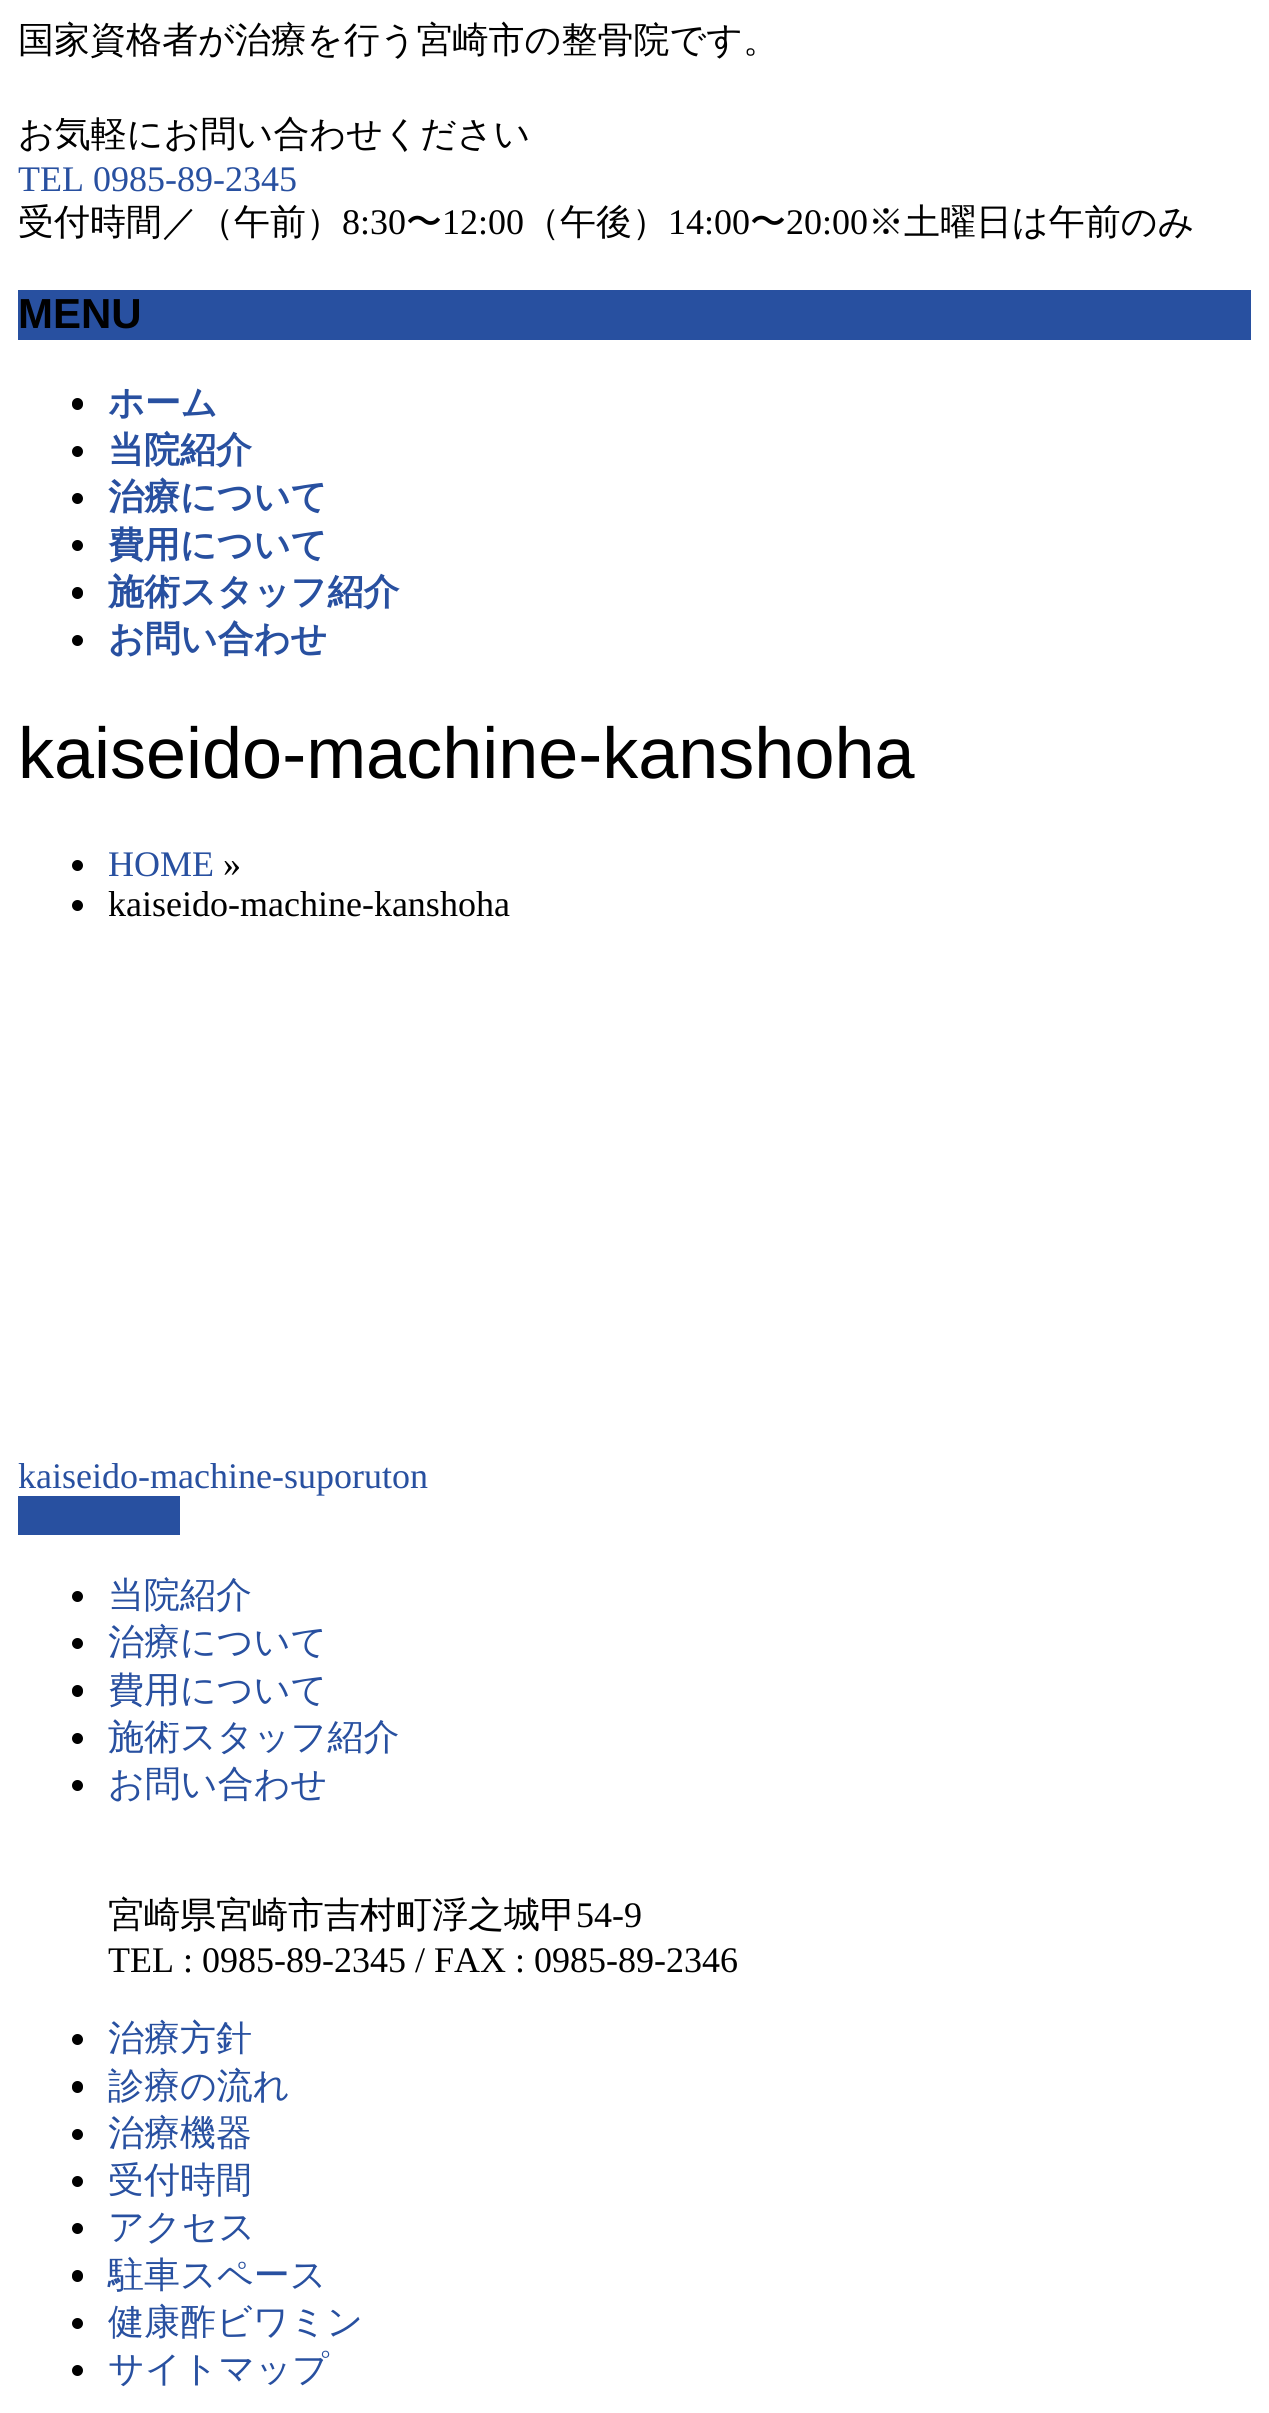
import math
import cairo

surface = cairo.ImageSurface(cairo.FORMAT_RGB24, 1269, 2413)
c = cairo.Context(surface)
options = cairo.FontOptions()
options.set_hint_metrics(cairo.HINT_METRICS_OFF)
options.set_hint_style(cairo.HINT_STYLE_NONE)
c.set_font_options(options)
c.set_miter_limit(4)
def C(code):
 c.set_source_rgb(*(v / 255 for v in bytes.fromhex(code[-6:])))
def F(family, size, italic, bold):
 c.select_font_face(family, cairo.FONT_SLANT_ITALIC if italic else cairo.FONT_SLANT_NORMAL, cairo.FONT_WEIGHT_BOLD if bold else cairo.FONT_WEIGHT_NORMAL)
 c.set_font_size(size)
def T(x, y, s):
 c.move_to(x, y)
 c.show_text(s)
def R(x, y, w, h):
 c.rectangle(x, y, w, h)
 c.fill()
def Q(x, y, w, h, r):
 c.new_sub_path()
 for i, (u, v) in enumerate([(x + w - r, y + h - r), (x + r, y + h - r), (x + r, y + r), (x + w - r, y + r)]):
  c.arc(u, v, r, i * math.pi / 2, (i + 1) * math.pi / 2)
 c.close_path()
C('ffffff')
c.paint()
F('WenQuanYi Zen Hei Medium',36,0,0)
C('000000')
T(18,52,'国家資格者が治療を行う宮崎市の整骨院です。')
T(18,146,'お気軽にお問い合わせください')
F('Liberation Serif',36,0,0)
C('2850a0')
T(18,191,'TEL 0985-89-2345')
F('WenQuanYi Zen Hei Medium',36,0,0)
C('000000')
T(18,234,'受付時間／（午前）')
F('Liberation Serif',36,0,0)
T(342,234,'8:30')
F('WenQuanYi Zen Hei Medium',36,0,0)
T(406,234,'〜')
F('Liberation Serif',36,0,0)
T(442,234,'12:00')
F('WenQuanYi Zen Hei Medium',36,0,0)
T(524,234,'（午後）')
F('Liberation Serif',36,0,0)
T(668,234,'14:00')
F('WenQuanYi Zen Hei Medium',36,0,0)
T(750,234,'〜')
F('Liberation Serif',36,0,0)
T(786,234,'20:00')
F('WenQuanYi Zen Hei Medium',36,0,0)
T(868,234,'※土曜日は午前のみ')
C('2850a0')
R(18,290,1233,50)
F('Liberation Sans',42,0,1)
C('000000')
T(18,328,'MENU')
Q(72,398,11,12,5.5)
c.fill()
F('WenQuanYi Zen Hei',36,0,1)
C('2850a0')
T(108,415,'ホーム')
C('000000')
c.new_path()
c.arc(77.5,451.5,5.5,0,2 * math.pi)
c.fill()
C('2850a0')
T(108,462,'当院紹介')
C('000000')
c.new_path()
c.arc(77.5,498.5,5.5,0,2 * math.pi)
c.fill()
C('2850a0')
T(108,509,'治療について')
C('000000')
c.new_path()
c.arc(77.5,545.5,5.5,0,2 * math.pi)
c.fill()
C('2850a0')
T(108,557,'費用について')
C('000000')
Q(72,587,11,12,5.5)
c.fill()
C('2850a0')
T(108,604,'施術スタッフ紹介')
C('000000')
c.new_path()
c.arc(77.5,640.5,5.5,0,2 * math.pi)
c.fill()
C('2850a0')
T(108,651,'お問い合わせ')
F('Liberation Sans',72,0,0)
C('000000')
T(18,778,'kaiseido-machine-kanshoha')
c.new_path()
c.arc(77.5,865.5,5.5,0,2 * math.pi)
c.fill()
F('Liberation Serif',36,0,0)
C('2850a0')
T(108,876,'HOME')
C('000000')
T(223,876,'»')
c.new_path()
c.arc(77.5,905.5,5.5,0,2 * math.pi)
c.fill()
T(108,916,'kaiseido-machine-kanshoha')
C('2850a0')
T(18,1488,'kaiseido-machine-suporuton')
R(18,1496,162,39)
C('000000')
c.new_path()
c.arc(77.5,1596.5,5.5,0,2 * math.pi)
c.fill()
F('WenQuanYi Zen Hei Medium',36,0,0)
C('2850a0')
T(108,1607,'当院紹介')
C('000000')
c.new_path()
c.arc(77.5,1643.5,5.5,0,2 * math.pi)
c.fill()
C('2850a0')
T(108,1654,'治療について')
C('000000')
Q(72,1685,11,12,5.5)
c.fill()
C('2850a0')
T(108,1702,'費用について')
C('000000')
c.new_path()
c.arc(77.5,1738.5,5.5,0,2 * math.pi)
c.fill()
C('2850a0')
T(108,1749,'施術スタッフ紹介')
C('000000')
c.new_path()
c.arc(77.5,1785.5,5.5,0,2 * math.pi)
c.fill()
C('2850a0')
T(108,1796,'お問い合わせ')
C('000000')
T(108,1927,'宮崎県宮崎市吉村町浮之城甲')
F('Liberation Serif',36,0,0)
T(576,1927,'54-9')
T(108,1972,'TEL : 0985-89-2345 / FAX : 0985-89-2346')
c.new_path()
c.arc(77.5,2039.5,5.5,0,2 * math.pi)
c.fill()
F('WenQuanYi Zen Hei Medium',36,0,0)
C('2850a0')
T(108,2050,'治療方針')
C('000000')
Q(72,2081,11,12,5.5)
c.fill()
C('2850a0')
T(108,2098,'診療の流れ')
C('000000')
c.new_path()
c.arc(77.5,2134.5,5.5,0,2 * math.pi)
c.fill()
C('2850a0')
T(108,2145,'治療機器')
C('000000')
c.new_path()
c.arc(77.5,2181.5,5.5,0,2 * math.pi)
c.fill()
C('2850a0')
T(108,2192,'受付時間')
C('000000')
c.new_path()
c.arc(77.5,2228.5,5.5,0,2 * math.pi)
c.fill()
C('2850a0')
T(108,2239,'アクセス')
C('000000')
Q(72,2270,11,12,5.5)
c.fill()
C('2850a0')
T(108,2287,'駐車スペース')
C('000000')
c.new_path()
c.arc(77.5,2323.5,5.5,0,2 * math.pi)
c.fill()
C('2850a0')
T(108,2334,'健康酢ビワミン')
C('000000')
c.new_path()
c.arc(77.5,2370.5,5.5,0,2 * math.pi)
c.fill()
C('2850a0')
T(108,2381,'サイトマップ')
surface.write_to_png('o.png')
